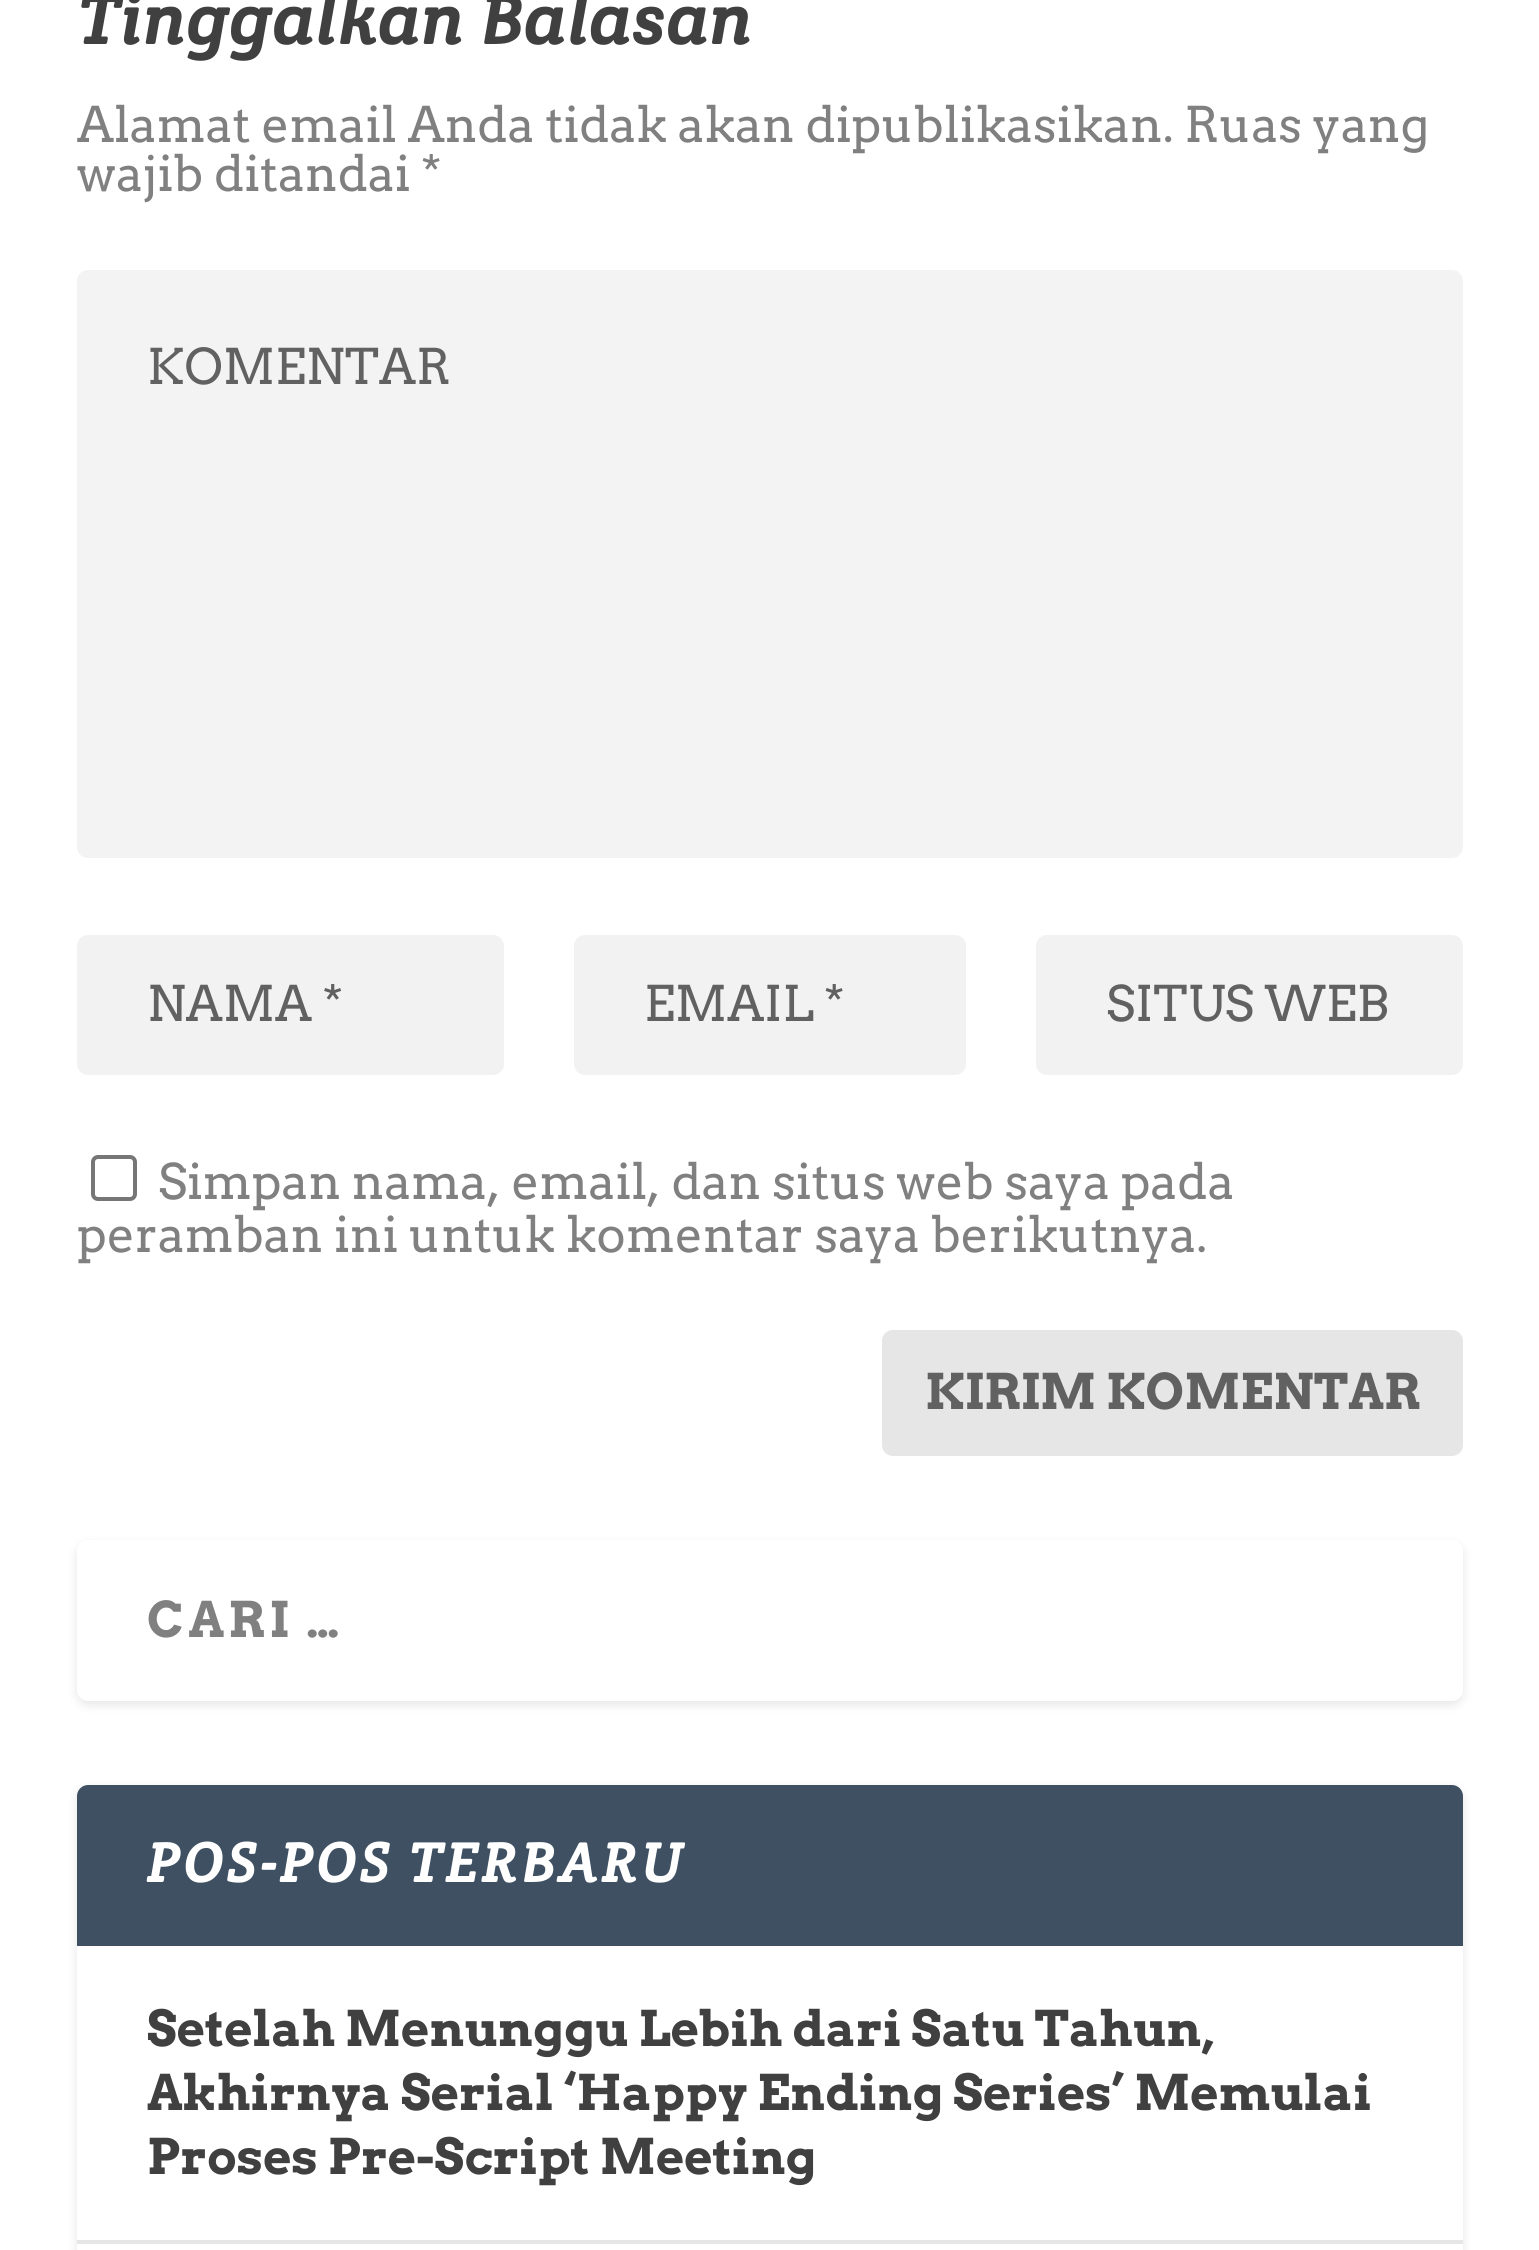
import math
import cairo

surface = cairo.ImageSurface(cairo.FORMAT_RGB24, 1539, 2250)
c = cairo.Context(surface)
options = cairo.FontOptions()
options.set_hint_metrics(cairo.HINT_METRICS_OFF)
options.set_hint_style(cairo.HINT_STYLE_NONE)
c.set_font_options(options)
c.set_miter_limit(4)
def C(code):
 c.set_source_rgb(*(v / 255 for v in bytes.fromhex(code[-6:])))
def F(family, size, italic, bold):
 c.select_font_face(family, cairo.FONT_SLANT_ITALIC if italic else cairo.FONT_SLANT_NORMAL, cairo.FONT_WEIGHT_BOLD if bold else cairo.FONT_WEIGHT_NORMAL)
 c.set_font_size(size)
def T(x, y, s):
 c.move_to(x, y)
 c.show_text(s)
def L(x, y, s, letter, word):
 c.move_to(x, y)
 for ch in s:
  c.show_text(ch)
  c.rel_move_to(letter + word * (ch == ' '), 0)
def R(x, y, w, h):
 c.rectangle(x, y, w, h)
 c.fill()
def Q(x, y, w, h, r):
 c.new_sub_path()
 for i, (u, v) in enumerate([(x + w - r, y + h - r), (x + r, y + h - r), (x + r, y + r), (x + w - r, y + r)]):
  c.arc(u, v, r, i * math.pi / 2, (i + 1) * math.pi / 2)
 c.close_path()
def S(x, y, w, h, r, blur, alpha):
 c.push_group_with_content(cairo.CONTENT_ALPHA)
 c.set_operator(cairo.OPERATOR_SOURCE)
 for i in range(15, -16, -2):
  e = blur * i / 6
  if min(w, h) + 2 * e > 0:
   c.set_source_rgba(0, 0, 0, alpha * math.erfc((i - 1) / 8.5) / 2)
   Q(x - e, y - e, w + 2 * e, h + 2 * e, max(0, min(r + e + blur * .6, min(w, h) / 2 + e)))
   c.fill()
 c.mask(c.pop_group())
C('ffffff')
c.paint()
F('Crete Round',70,1,1)
C('404040')
L(77,44,'Tinggalkan Balasan',1.75,0)
F('Arvo',49,0,0)
C('808080')
T(77,142,'Alamat email Anda tidak akan dipublikasikan. Ruas yang')
T(77,191,'wajib ditandai *')
C('f3f3f3')
Q(77,270,1386,588,11)
c.fill()
C('616161')
T(147,384,'KOMENTAR')
C('f2f2f2')
Q(77,935,427,140,11)
c.fill()
C('616161')
T(147,1021,'NAMA *')
C('f2f2f2')
Q(574,935,392,140,11)
c.fill()
C('616161')
T(644,1021,'EMAIL *')
C('f2f2f2')
Q(1036,935,427,140,11)
c.fill()
C('616161')
T(1106,1021,'SITUS WEB')
Q(93,1157,42,42,5)
C('767676')
c.set_line_width(4)
c.stroke()
C('808080')
T(158,1199,'Simpan nama, email, dan situs web saya pada')
T(77,1252,'peramban ini untuk komentar saya berikutnya.')
C('e6e6e6')
Q(882,1330,581,126,11)
c.fill()
F('Arvo',49,0,1)
C('616161')
T(925,1409,'KIRIM KOMENTAR')
C('000000')
S(77,1544,1386,161,11,5,.1)
C('ffffff')
Q(77,1540,1386,161,11)
c.fill()
C('808080')
L(147,1637,'CARI …',4.25,0)
c.save()
c.set_fill_rule(cairo.FILL_RULE_EVEN_ODD)
c.new_path()
c.move_to(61,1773)
c.line_to(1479,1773)
c.line_to(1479,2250)
c.line_to(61,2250)
c.close_path()
c.move_to(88,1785)
c.line_to(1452,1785)
c.curve_to(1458,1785,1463,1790,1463,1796)
c.line_to(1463,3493)
c.curve_to(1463,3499,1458,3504,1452,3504)
c.line_to(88,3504)
c.curve_to(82,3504,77,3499,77,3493)
c.line_to(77,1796)
c.curve_to(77,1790,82,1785,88,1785)
c.close_path()
c.clip()
C('000000')
S(77,1789,1386,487,11,5,.1)
c.restore()
C('3e5062')
c.new_path()
c.move_to(88,1785)
c.line_to(1452,1785)
c.curve_to(1458,1785,1463,1790,1463,1796)
c.line_to(1463,1946)
c.line_to(77,1946)
c.line_to(77,1796)
c.curve_to(77,1790,82,1785,88,1785)
c.close_path()
c.fill()
F('Crete Round',56,1,1)
C('ffffff')
L(147,1882,'POS-POS TERBARU',4.25,0)
C('e6e6e6')
R(77,2240,1386,4)
F('Arvo',49,0,1)
C('404040')
T(147,2046,'Setelah Menunggu Lebih dari Satu Tahun,')
T(147,2110,'Akhirnya Serial ‘Happy Ending Series’ Memulai')
T(147,2174,'Proses Pre-Script Meeting')
surface.write_to_png('o.png')
